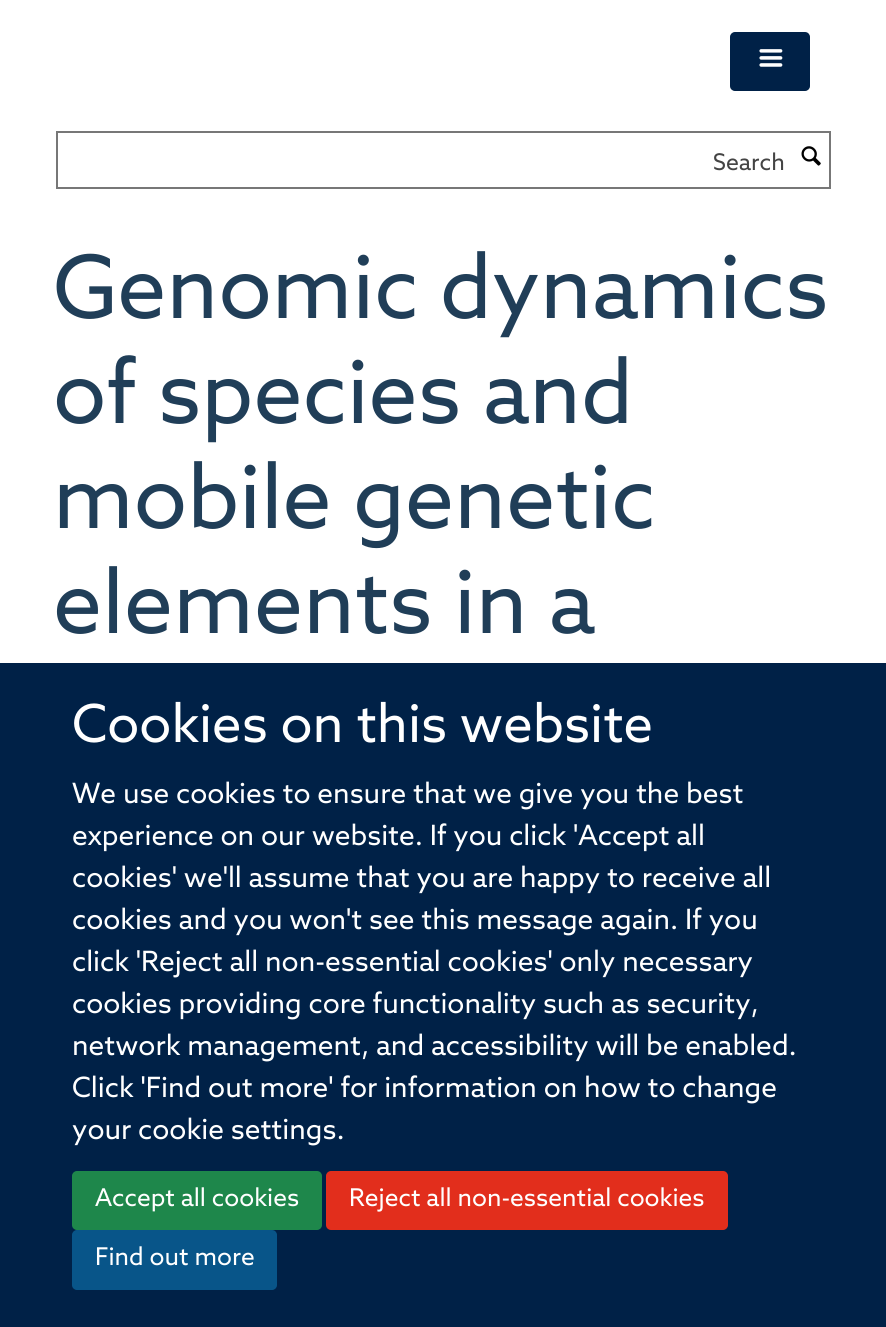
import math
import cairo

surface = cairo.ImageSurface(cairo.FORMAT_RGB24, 886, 1327)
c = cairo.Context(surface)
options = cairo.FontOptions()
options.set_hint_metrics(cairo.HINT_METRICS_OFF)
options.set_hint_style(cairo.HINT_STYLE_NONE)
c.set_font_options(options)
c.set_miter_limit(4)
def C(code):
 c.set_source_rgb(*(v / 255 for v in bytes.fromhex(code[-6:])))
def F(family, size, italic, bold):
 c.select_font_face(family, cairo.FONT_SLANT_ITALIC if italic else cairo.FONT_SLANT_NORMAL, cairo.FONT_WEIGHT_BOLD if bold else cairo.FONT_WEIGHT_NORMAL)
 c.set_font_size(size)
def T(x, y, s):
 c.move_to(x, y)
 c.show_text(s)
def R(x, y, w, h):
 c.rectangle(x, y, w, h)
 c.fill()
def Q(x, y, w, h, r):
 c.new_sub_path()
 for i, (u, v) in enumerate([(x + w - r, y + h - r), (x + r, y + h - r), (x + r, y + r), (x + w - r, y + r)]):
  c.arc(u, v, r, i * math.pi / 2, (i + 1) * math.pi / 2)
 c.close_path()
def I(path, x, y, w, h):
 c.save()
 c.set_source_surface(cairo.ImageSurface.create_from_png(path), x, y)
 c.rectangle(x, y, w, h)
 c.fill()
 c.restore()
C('ffffff')
c.paint()
C('002147')
Q(731,33,78,57,4)
c.fill_preserve()
c.stroke()
I('1.png',759,49,24,18)
c.rectangle(57,132,773,56)
C('777777')
c.stroke()
F('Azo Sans',23,0,0)
C('444444')
T(713,170,'Search')
I('2.png',801,146,20,20)
F('Azo Sans',87.5,0,0)
C('203e58')
T(53,318,'Genomic dynamics')
T(53,423,'of species and')
T(53,528,'mobile genetic')
T(53,633,'elements in a')
C('002147')
R(0,663,886,664)
F('Azo Sans',52.5,0,0)
C('ffffff')
T(72,742,'Cookies on this website')
F('Azo Sans',28,0,0)
T(72,803,'We use cookies to ensure that we give you the best')
T(72,845,'experience on our website. If you click \'Accept all')
T(72,887,'cookies\' we\'ll assume that you are happy to receive all')
T(72,929,'cookies and you won\'t see this message again. If you')
T(72,971,'click \'Reject all non-essential cookies\' only necessary')
T(72,1013,'cookies providing core functionality such as security,')
T(72,1055,'network management, and accessibility will be enabled.')
T(72,1097,'Click \'Find out more\' for information on how to change')
T(72,1139,'your cookie settings.')
C('1e874b')
Q(73,1172,248,57,4)
c.fill_preserve()
c.stroke()
F('Azo Sans',24.5,0,0)
C('ffffff')
T(95,1206,'Accept all cookies')
C('e22e1c')
Q(327,1172,400,57,4)
c.fill_preserve()
c.stroke()
C('ffffff')
T(349,1206,'Reject all non-essential cookies')
C('085589')
Q(73,1231,203,58,4)
c.fill_preserve()
c.stroke()
C('ffffff')
T(95,1265,'Find out more')
surface.write_to_png('o.png')
